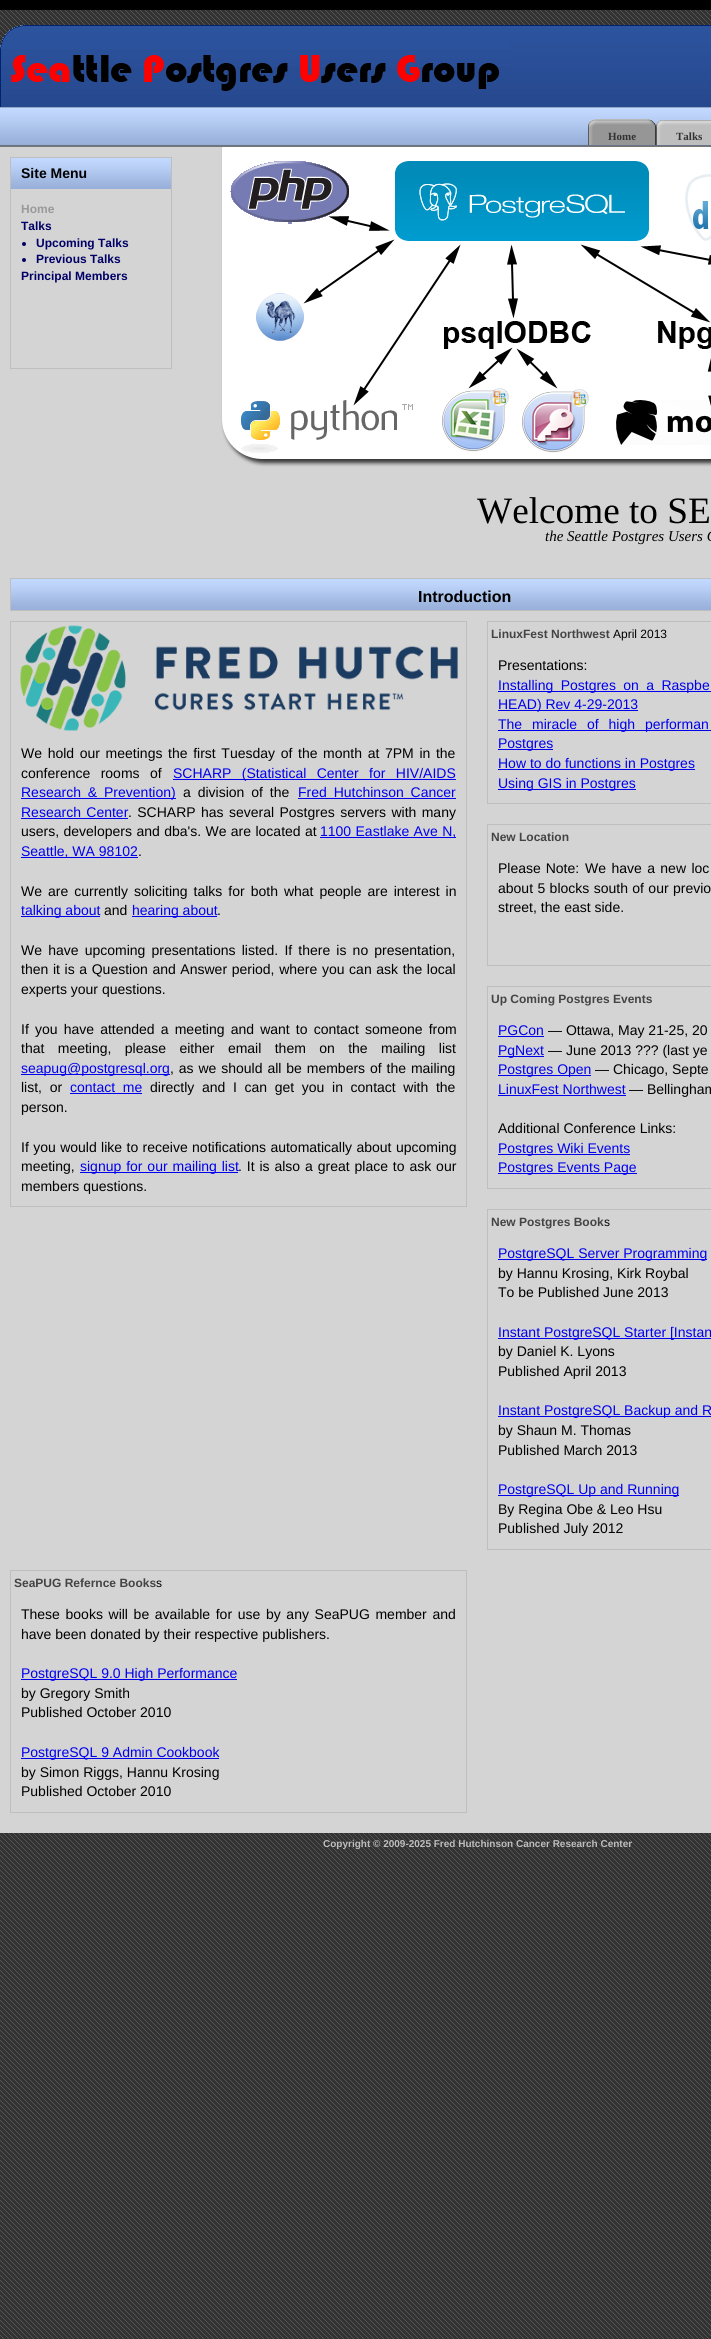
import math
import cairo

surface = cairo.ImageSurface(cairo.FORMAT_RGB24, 711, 2339)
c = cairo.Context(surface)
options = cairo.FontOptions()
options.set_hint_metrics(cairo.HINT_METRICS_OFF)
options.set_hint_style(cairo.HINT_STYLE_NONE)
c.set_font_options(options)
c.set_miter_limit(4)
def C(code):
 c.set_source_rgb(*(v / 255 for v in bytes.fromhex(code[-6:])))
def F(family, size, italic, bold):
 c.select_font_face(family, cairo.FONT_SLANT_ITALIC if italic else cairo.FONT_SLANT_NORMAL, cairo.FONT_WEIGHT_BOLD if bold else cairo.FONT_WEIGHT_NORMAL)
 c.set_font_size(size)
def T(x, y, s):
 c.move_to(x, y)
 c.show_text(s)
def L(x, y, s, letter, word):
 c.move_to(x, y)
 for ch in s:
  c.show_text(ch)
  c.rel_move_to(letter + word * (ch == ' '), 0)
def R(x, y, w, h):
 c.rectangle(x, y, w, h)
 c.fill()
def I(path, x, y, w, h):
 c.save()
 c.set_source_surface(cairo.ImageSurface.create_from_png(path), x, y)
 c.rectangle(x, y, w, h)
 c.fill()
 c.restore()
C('ffffff')
c.paint()
I('1.png',0,10,711,2329)
C('000000')
R(0,0,711,10)
I('2.png',0,25,510,82)
I('3.png',510,25,85,82)
I('4.png',595,25,116,82)
I('5.png',0,107,711,40)
I('6.png',588,119,9,26)
I('7.png',597,119,59,26)
F('Liberation Serif',11,0,1)
C('333333')
T(608,140,'Home')
I('8.png',656,120,9,25)
I('9.png',665,120,46,25)
T(676,140,'Talks')
C('d4d4d4')
R(0,147,711,1686)
c.rectangle(10.5,157.5,161,211)
C('bfbebe')
c.set_line_width(1)
c.stroke()
I('10.png',11,158,160,31)
F('Liberation Sans',14,0,1)
C('000000')
T(21,178,'Site Menu')
F('Liberation Sans',12,0,1)
C('999999')
T(21,213,'Home')
C('000066')
T(21,230,'Talks')
c.new_path()
c.arc(24,244,2,0,2 * math.pi)
c.fill()
T(36,247,'Upcoming Talks')
c.new_path()
c.arc(24,260,2,0,2 * math.pi)
c.fill()
T(36,263,'Previous Talks')
T(21,280,'Principal Members')
I('11.png',221,147,490,320)
F('Liberation Serif',37.25,0,0)
C('000000')
T(477,523,'Welcome to SE')
F('Liberation Serif',15,1,0)
T(545,541,'the Seattle Postgres Users G')
c.rectangle(10.5,578.5,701,32)
C('bfbebe')
c.stroke()
I('12.png',11,579,700,31)
F('Liberation Sans',16,0,1)
C('000000')
T(418,602,'Introduction')
c.rectangle(487.5,621.5,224,182)
C('bfbebe')
c.stroke()
F('Liberation Sans',12,0,1)
C('444444')
T(491,638,'LinuxFest Northwest')
F('Liberation Sans',12,0,0)
C('000000')
T(613,638,'April 2013')
F('Liberation Sans',14,0,0)
T(498,670,'Presentations:')
C('0000ee')
R(498,691,213,1)
L(498,690,'Installing Postgres on a Raspbe',0,3.5)
R(498,710,140,1)
T(498,709,'HEAD) Rev 4-29-2013')
R(498,730,213,1)
L(498,729,'The miracle of high performan',0,6)
R(498,749,55,1)
T(498,748,'Postgres')
R(498,769,197,1)
T(498,768,'How to do functions in Postgres')
R(498,789,138,1)
T(498,788,'Using GIS in Postgres')
c.rectangle(10.5,621.5,456,585)
C('bfbebe')
c.stroke()
I('13.png',20,625,438,106)
C('000000')
L(21,758,'We hold our meetings the first Tuesday of the month at 7PM in the',0,1.75)
L(21,778,'conference rooms of',0,6.5)
C('0000ee')
R(173,779,283,1)
L(173,778,'SCHARP (Statistical Center for HIV/AIDS',0,6.5)
R(21,798,155,1)
L(21,797,'Research & Prevention)',0,3)
C('000000')
L(183,797,'a division of the',0,3)
C('0000ee')
L(298,797,'Fred Hutchinson Cancer',0,3)
R(298,798,158,1)
L(21,817,'Research Center',0,1.5)
R(21,818,107,1)
C('000000')
L(128,817,'. SCHARP has several Postgres servers with many',0,1.5)
L(21,836,'users, developers and dba\'s. We are located at',0,.5)
C('0000ee')
R(320,837,136,1)
L(320,836,'1100 Eastlake Ave N,',0,.5)
R(21,857,117,1)
T(21,856,'Seattle, WA 98102')
C('000000')
T(138,856,'.')
L(21,896,'We are currently soliciting talks for both what people are interest in',0,2.1)
C('0000ee')
R(21,916,79,1)
T(21,915,'talking about')
C('000000')
T(104,915,'and')
C('0000ee')
R(132,916,85,1)
T(132,915,'hearing about')
C('000000')
T(217,915,'.')
L(21,955,'We have upcoming presentations listed. If there is no presentation,',0,2.25)
L(21,974,'then it is a Question and Answer period, where you can ask the local',0,.75)
T(21,994,'experts your questions.')
L(21,1034,'If you have attended a meeting and want to contact someone from',0,2.25)
L(21,1053,'that meeting, please either email them on the mailing list',0,9.5)
C('0000ee')
R(21,1074,149,1)
T(21,1073,'seapug@postgresql.org')
C('000000')
L(170,1073,', as we should all be members of the mailing',0,1)
L(21,1092,'list, or',0,3.75)
C('0000ee')
L(70,1092,'contact me',0,3.75)
R(70,1093,72,1)
C('000000')
L(150,1092,'directly and I can get you in contact with the',0,3.75)
T(21,1112,'person.')
L(21,1152,'If you would like to receive notifications automatically about upcoming',0,.5)
T(21,1171,'meeting,')
C('0000ee')
R(80,1172,158,1)
L(80,1171,'signup for our mailing list',0,1)
C('000000')
L(238,1171,'. It is also a great place to ask our',0,1)
T(21,1191,'members questions.')
c.rectangle(487.5,824.5,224,141)
C('bfbebe')
c.stroke()
F('Liberation Sans',12,0,1)
C('444444')
T(491,841,'New Location')
F('Liberation Sans',14,0,0)
C('000000')
L(498,873,'Please Note:',0,1)
L(585,873,'We have a new loc',0,1.5)
L(498,893,'about 5 blocks south of our previo',0,.5)
T(498,912,'street, the east side.')
c.rectangle(487.5,986.5,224,202)
C('bfbebe')
c.stroke()
F('Liberation Sans',12,0,1)
C('444444')
T(491,1003,'Up Coming Postgres Events')
F('Liberation Sans',14,0,0)
C('0000ee')
T(498,1035,'PGCon')
R(498,1036,46,1)
C('000000')
T(548,1035,'— Ottawa, May 21-25, 20')
C('0000ee')
R(498,1056,46,1)
T(498,1055,'PgNext')
C('000000')
T(548,1055,'— June 2013 ??? (last ye')
C('0000ee')
R(498,1075,93,1)
T(498,1074,'Postgres Open')
C('000000')
T(595,1074,'— Chicago, Septe')
C('0000ee')
T(498,1094,'LinuxFest Northwest')
R(498,1095,128,1)
C('000000')
T(629,1094,'— Bellingham')
T(498,1133,'Additional Conference Links:')
C('0000ee')
R(498,1154,132,1)
T(498,1153,'Postgres Wiki Events')
R(498,1173,139,1)
T(498,1172,'Postgres Events Page')
c.rectangle(487.5,1209.5,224,340)
C('bfbebe')
c.stroke()
F('Liberation Sans',12,0,1)
C('444444')
T(491,1226,'New Postgres Book')
F('Liberation Sans',12,0,0)
C('000000')
T(604,1226,'s')
C('0000ee')
R(498,1259,209,1)
F('Liberation Sans',14,0,0)
T(498,1258,'PostgreSQL Server Programming')
C('000000')
T(498,1278,'by Hannu Krosing, Kirk Roybal')
T(498,1297,'To be Published June 2013')
C('0000ee')
R(498,1338,213,1)
T(498,1337,'Instant PostgreSQL Starter [Instan')
C('000000')
T(498,1356,'by Daniel K. Lyons')
T(498,1376,'Published April 2013')
C('0000ee')
R(498,1416,213,1)
T(498,1415,'Instant PostgreSQL Backup and R')
C('000000')
T(498,1435,'by Shaun M. Thomas')
T(498,1455,'Published March 2013')
C('0000ee')
R(498,1495,181,1)
T(498,1494,'PostgreSQL Up and Running')
C('000000')
T(498,1514,'By Regina Obe & Leo Hsu')
T(498,1533,'Published July 2012')
c.rectangle(10.5,1570.5,456,242)
C('bfbebe')
c.stroke()
F('Liberation Sans',12,0,1)
C('444444')
T(14,1587,'SeaPUG Refernce Books')
F('Liberation Sans',12,0,0)
C('000000')
T(156,1587,'s')
F('Liberation Sans',14,0,0)
L(21,1619,'These books will be available for use by any SeaPUG member and',0,1.75)
T(21,1639,'have been donated by their respective publishers.')
C('0000ee')
R(21,1679,216,1)
T(21,1678,'PostgreSQL 9.0 High Performance')
C('000000')
T(21,1698,'by Gregory Smith')
T(21,1717,'Published October 2010')
C('0000ee')
R(21,1758,198,1)
T(21,1757,'PostgreSQL 9 Admin Cookbook')
C('000000')
T(21,1777,'by Simon Riggs, Hannu Krosing')
T(21,1796,'Published October 2010')
F('Liberation Sans',10,0,1)
C('bfbebe')
T(323,1847,'Copyright © 2009-2025 Fred Hutchinson Cancer Research Center')
surface.write_to_png('o.png')
